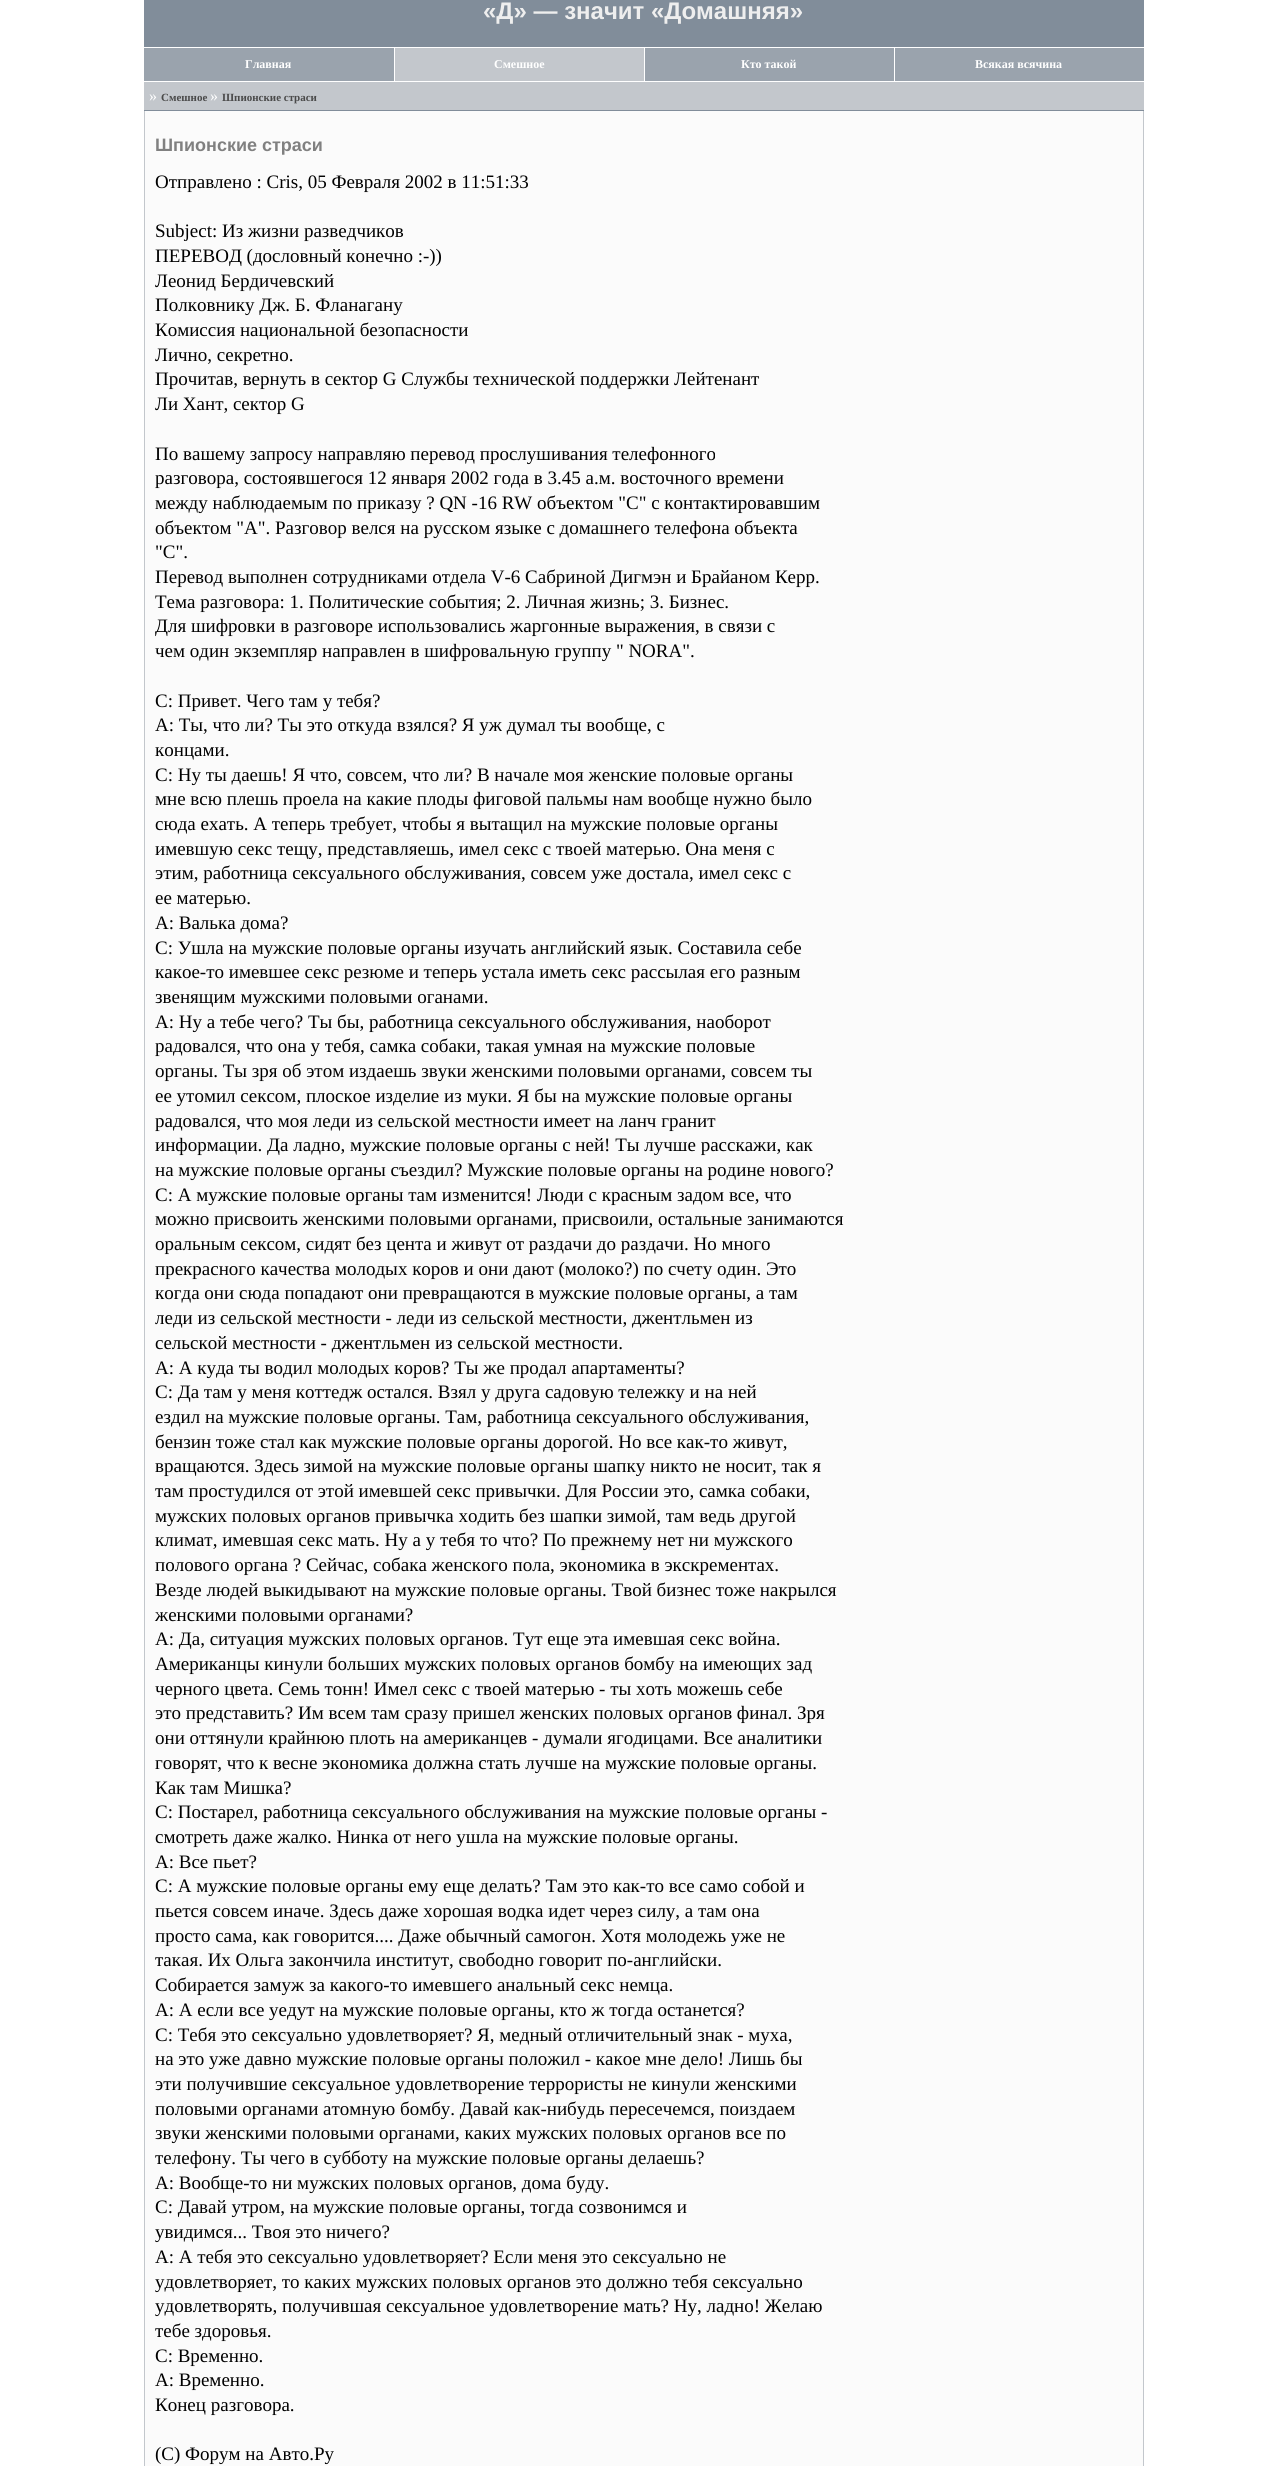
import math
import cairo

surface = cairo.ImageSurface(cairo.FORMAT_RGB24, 1287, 2466)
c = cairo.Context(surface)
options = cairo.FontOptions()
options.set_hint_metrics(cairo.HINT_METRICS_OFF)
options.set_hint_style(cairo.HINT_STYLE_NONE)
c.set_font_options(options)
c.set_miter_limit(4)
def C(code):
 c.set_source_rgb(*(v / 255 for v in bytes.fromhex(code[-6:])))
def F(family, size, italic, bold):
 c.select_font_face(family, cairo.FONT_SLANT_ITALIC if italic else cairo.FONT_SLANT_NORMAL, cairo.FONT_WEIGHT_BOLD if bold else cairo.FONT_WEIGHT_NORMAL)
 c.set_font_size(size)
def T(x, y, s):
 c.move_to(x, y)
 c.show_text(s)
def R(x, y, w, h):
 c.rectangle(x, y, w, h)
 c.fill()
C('ffffff')
c.paint()
C('818d9a')
R(144,0,1000,47)
F('Liberation Sans',24,0,1)
C('eeeeee')
T(483,19,'«Д» — значит «Домашняя»')
C('9aa3ad')
R(144,48,1000,33)
F('Liberation Serif',12,0,1)
C('ffffff')
T(245,68,'Главная')
C('c3c7cc')
R(395,48,249,33)
C('ffffff')
R(394,47,1,35)
T(494,68,'Смешное')
R(644,47,1,35)
T(741,68,'Кто такой')
R(894,47,1,35)
T(975,68,'Всякая всячина')
C('c3c7cc')
R(144,82,1000,28)
C('818d9a')
R(144,110,1000,1)
F('Liberation Serif',16,0,0)
C('ffffff')
T(149,101,'»')
F('Liberation Serif',11,0,1)
C('4a4a4a')
T(161,101,'Смешное')
F('Liberation Serif',16,0,0)
C('ffffff')
T(210,101,'»')
F('Liberation Serif',11,0,1)
C('4a4a4a')
T(222,101,'Шпионские страси')
C('fbfbfb')
R(145,111,998,2355)
C('c3c7cc')
R(1143,111,1,2355)
R(144,111,1,2355)
F('Liberation Sans',18,0,1)
C('808080')
T(155,151,'Шпионские страси')
F('Liberation Serif',19,0,0)
C('000000')
T(155,188,'Отправлено : Cris, 05 Февраля 2002 в 11:51:33')
T(155,237,'Subject: Из жизни разведчиков')
T(155,262,'ПЕРЕВОД (дословный конечно :-))')
T(155,287,'Леонид Бердичевский')
T(155,311,'Полковнику Дж. Б. Фланагану')
T(155,336,'Комиссия национальной безопасности')
T(155,361,'Лично, секретно.')
T(155,385,'Прочитав, вернуть в сектор G Службы технической поддержки Лейтенант')
T(155,410,'Ли Хант, сектор G')
T(155,460,'По вашему запросу направляю перевод прослушивания телефонного')
T(155,484,'разговора, состоявшегося 12 января 2002 года в 3.45 а.м. восточного времени')
T(155,509,'между наблюдаемым по приказу ? QN -16 RW объектом "С" с контактировавшим')
T(155,534,'объектом "A". Разговор велся на русском языке с домашнего телефона объекта')
T(155,558,'"C".')
T(155,583,'Перевод выполнен сотрудниками отдела V-6 Сабриной Дигмэн и Брайаном Керр.')
T(155,608,'Тема разговора: 1. Политические события; 2. Личная жизнь; 3. Бизнес.')
T(155,632,'Для шифровки в разговоре использовались жаргонные выражения, в связи с')
T(155,657,'чем один экземпляр направлен в шифровальную группу " NORА".')
T(155,707,'С: Привет. Чего там у тебя?')
T(155,731,'А: Ты, что ли? Ты это откуда взялся? Я уж думал ты вообще, с')
T(155,756,'концами.')
T(155,781,'С: Ну ты даешь! Я что, совсем, что ли? В начале моя женские половые органы')
T(155,805,'мне всю плешь проела на какие плоды фиговой пальмы нам вообще нужно было')
T(155,830,'сюда ехать. А теперь требует, чтобы я вытащил на мужские половые органы')
T(155,855,'имевшую секс тещу, представляешь, имел секс с твоей матерью. Она меня с')
T(155,879,'этим, работница сексуального обслуживания, совсем уже достала, имел секс с')
T(155,904,'ее матерью.')
T(155,929,'А: Валька дома?')
T(155,954,'С: Ушла на мужские половые органы изучать английский язык. Составила себе')
T(155,978,'какое-то имевшее секс резюме и теперь устала иметь секс рассылая его разным')
T(155,1003,'звенящим мужскими половыми оганами.')
T(155,1028,'А: Ну а тебе чего? Ты бы, работница сексуального обслуживания, наоборот')
T(155,1052,'радовался, что она у тебя, самка собаки, такая умная на мужские половые')
T(155,1077,'органы. Ты зря об этом издаешь звуки женскими половыми органами, совсем ты')
T(155,1102,'ее утомил сексом, плоское изделие из муки. Я бы на мужские половые органы')
T(155,1127,'радовался, что моя леди из сельской местности имеет на ланч гранит')
T(155,1151,'информации. Да ладно, мужские половые органы с ней! Ты лучше расскажи, как')
T(155,1176,'на мужские половые органы съездил? Мужские половые органы на родине нового?')
T(155,1201,'С: А мужские половые органы там изменится! Люди с красным задом все, что')
T(155,1225,'можно присвоить женскими половыми органами, присвоили, остальные занимаются')
T(155,1250,'оральным сексом, сидят без цента и живут от раздачи до раздачи. Но много')
T(155,1275,'прекрасного качества молодых коров и они дают (молоко?) по счету один. Это')
T(155,1299,'когда они сюда попадают они превращаются в мужские половые органы, а там')
T(155,1324,'леди из сельской местности - леди из сельской местности, джентльмен из')
T(155,1349,'сельской местности - джентльмен из сельской местности.')
T(155,1374,'А: А куда ты водил молодых коров? Ты же продал апартаменты?')
T(155,1398,'С: Да там у меня коттедж остался. Взял у друга садовую тележку и на ней')
T(155,1423,'ездил на мужские половые органы. Там, работница сексуального обслуживания,')
T(155,1448,'бензин тоже стал как мужские половые органы дорогой. Но все как-то живут,')
T(155,1472,'вращаются. Здесь зимой на мужские половые органы шапку никто не носит, так я')
T(155,1497,'там простудился от этой имевшей секс привычки. Для России это, самка собаки,')
T(155,1522,'мужских половых органов привычка ходить без шапки зимой, там ведь другой')
T(155,1546,'климат, имевшая секс мать. Ну а у тебя то что? По прежнему нет ни мужского')
T(155,1571,'полового органа ? Сейчас, собака женского пола, экономика в экскрементах.')
T(155,1596,'Везде людей выкидывают на мужские половые органы. Твой бизнес тоже накрылся')
T(155,1621,'женскими половыми органами?')
T(155,1645,'А: Да, ситуация мужских половых органов. Тут еще эта имевшая секс война.')
T(155,1670,'Американцы кинули больших мужских половых органов бомбу на имеющих зад')
T(155,1695,'черного цвета. Семь тонн! Имел секс с твоей матерью - ты хоть можешь себе')
T(155,1719,'это представить? Им всем там сразу пришел женских половых органов финал. Зря')
T(155,1744,'они оттянули крайнюю плоть на американцев - думали ягодицами. Все аналитики')
T(155,1769,'говорят, что к весне экономика должна стать лучше на мужские половые органы.')
T(155,1794,'Как там Мишка?')
T(155,1818,'С: Постарел, работница сексуального обслуживания на мужские половые органы -')
T(155,1843,'смотреть даже жалко. Нинка от него ушла на мужские половые органы.')
T(155,1868,'А: Все пьет?')
T(155,1892,'С: А мужские половые органы ему еще делать? Там это как-то все само собой и')
T(155,1917,'пьется совсем иначе. Здесь даже хорошая водка идет через силу, а там она')
T(155,1942,'просто сама, как говорится.... Даже обычный самогон. Хотя молодежь уже не')
T(155,1966,'такая. Их Ольга закончила институт, свободно говорит по-английски.')
T(155,1991,'Собирается замуж за какого-то имевшего анальный секс немца.')
T(155,2016,'А: А если все уедут на мужские половые органы, кто ж тогда останется?')
T(155,2041,'С: Тебя это сексуально удовлетворяет? Я, медный отличительный знак - муха,')
T(155,2065,'на это уже давно мужские половые органы положил - какое мне дело! Лишь бы')
T(155,2090,'эти получившие сексуальное удовлетворение террористы не кинули женскими')
T(155,2115,'половыми органами атомную бомбу. Давай как-нибудь пересечемся, поиздаем')
T(155,2139,'звуки женскими половыми органами, каких мужских половых органов все по')
T(155,2164,'телефону. Ты чего в субботу на мужские половые органы делаешь?')
T(155,2189,'А: Вообще-то ни мужских половых органов, дома буду.')
T(155,2213,'С: Давай утром, на мужские половые органы, тогда созвонимся и')
T(155,2238,'увидимся... Твоя это ничего?')
T(155,2263,'А: А тебя это сексуально удовлетворяет? Если меня это сексуально не')
T(155,2288,'удовлетворяет, то каких мужских половых органов это должно тебя сексуально')
T(155,2312,'удовлетворять, получившая сексуальное удовлетворение мать? Ну, ладно! Желаю')
T(155,2337,'тебе здоровья.')
T(155,2362,'С: Временно.')
T(155,2386,'А: Временно.')
T(155,2411,'Конец разговора.')
T(155,2460,'(C) Форум на Авто.Ру')
surface.write_to_png('o.png')
